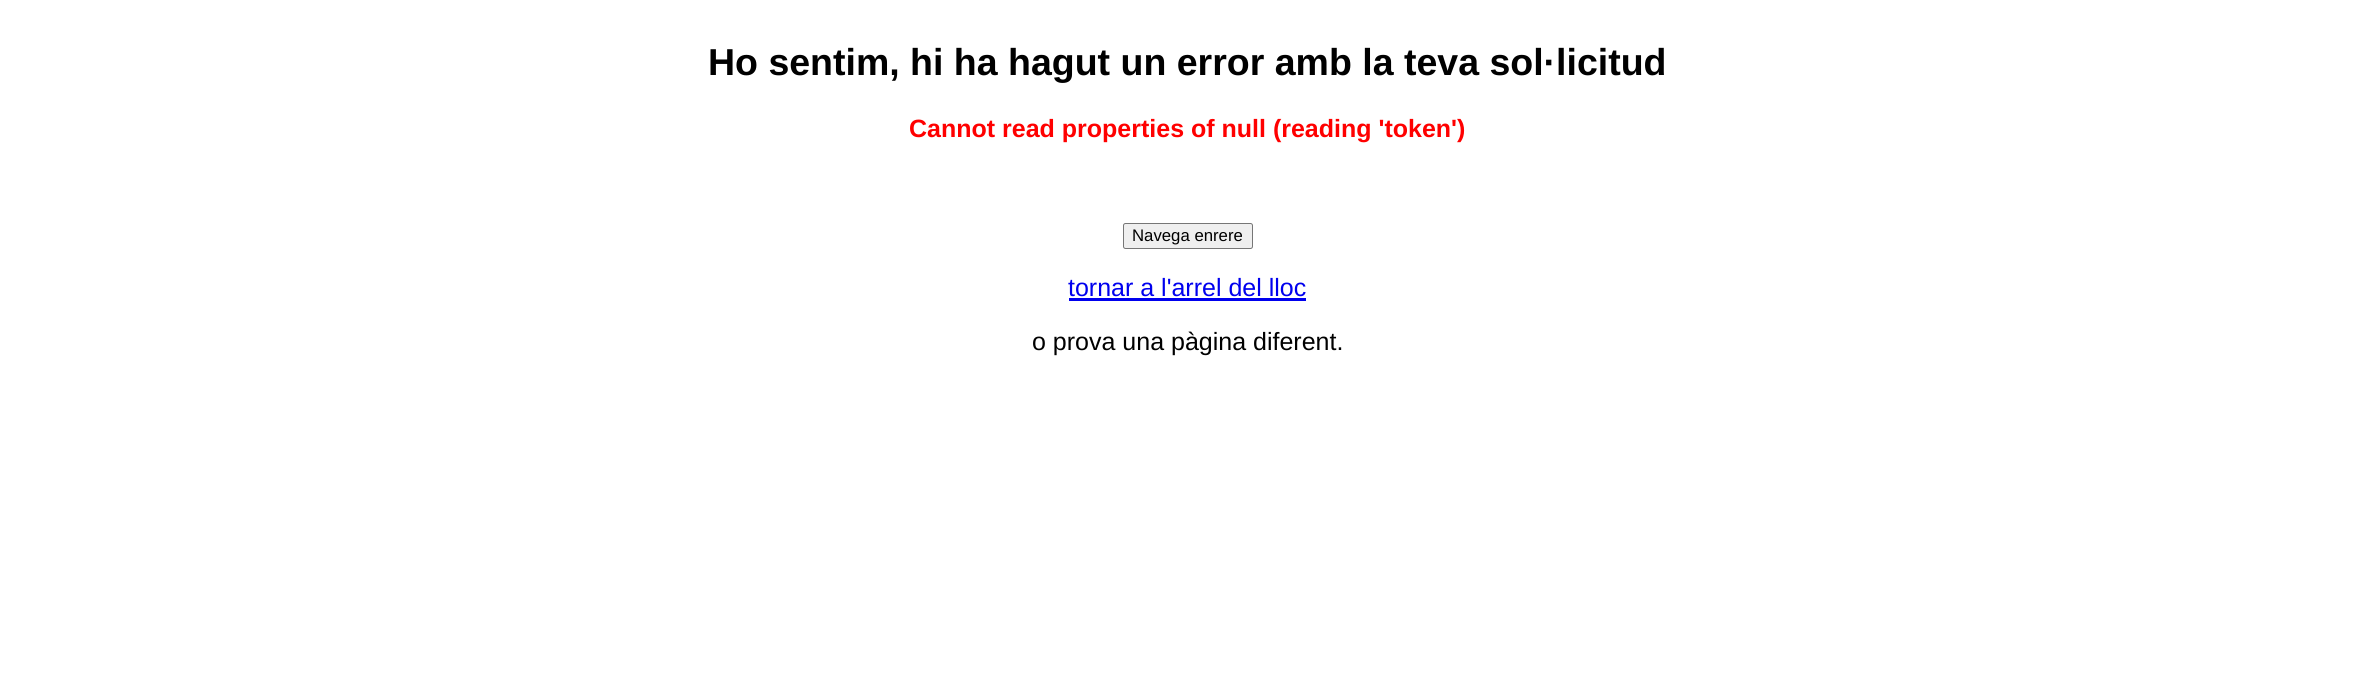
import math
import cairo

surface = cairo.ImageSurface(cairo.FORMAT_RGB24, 2374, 686)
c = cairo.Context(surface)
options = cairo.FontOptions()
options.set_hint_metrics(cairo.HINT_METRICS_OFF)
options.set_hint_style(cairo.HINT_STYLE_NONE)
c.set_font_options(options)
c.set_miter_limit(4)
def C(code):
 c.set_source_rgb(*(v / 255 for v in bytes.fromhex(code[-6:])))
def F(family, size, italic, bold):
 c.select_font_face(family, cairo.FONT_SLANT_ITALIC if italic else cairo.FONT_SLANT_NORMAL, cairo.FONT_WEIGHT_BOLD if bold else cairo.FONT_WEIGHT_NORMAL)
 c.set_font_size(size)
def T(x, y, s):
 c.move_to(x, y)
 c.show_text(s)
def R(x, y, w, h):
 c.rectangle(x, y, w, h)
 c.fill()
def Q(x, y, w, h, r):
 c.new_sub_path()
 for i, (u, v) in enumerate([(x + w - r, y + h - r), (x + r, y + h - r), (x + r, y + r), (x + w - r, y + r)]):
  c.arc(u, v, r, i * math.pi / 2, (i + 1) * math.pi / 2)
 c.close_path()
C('ffffff')
c.paint()
F('Liberation Sans',37.5,0,1)
C('000000')
T(708,75,'Ho sentim, hi ha hagut un error amb la teva sol·licitud')
F('Liberation Sans',25,0,1)
C('ff0000')
T(909,137,'Cannot read properties of null (reading \'token\')')
C('efefef')
Q(1123.5,223.5,129,25,2)
c.fill_preserve()
C('767676')
c.set_line_width(1)
c.stroke()
F('Liberation Sans',16.75,0,0)
C('000000')
T(1132,241,'Navega enrere')
F('Liberation Sans',25,0,0)
C('0000ee')
T(1068,296,'tornar a l\'arrel del lloc')
R(1069,298,237,3)
C('000000')
T(1032,350,'o prova una pàgina diferent.')
surface.write_to_png('o.png')
